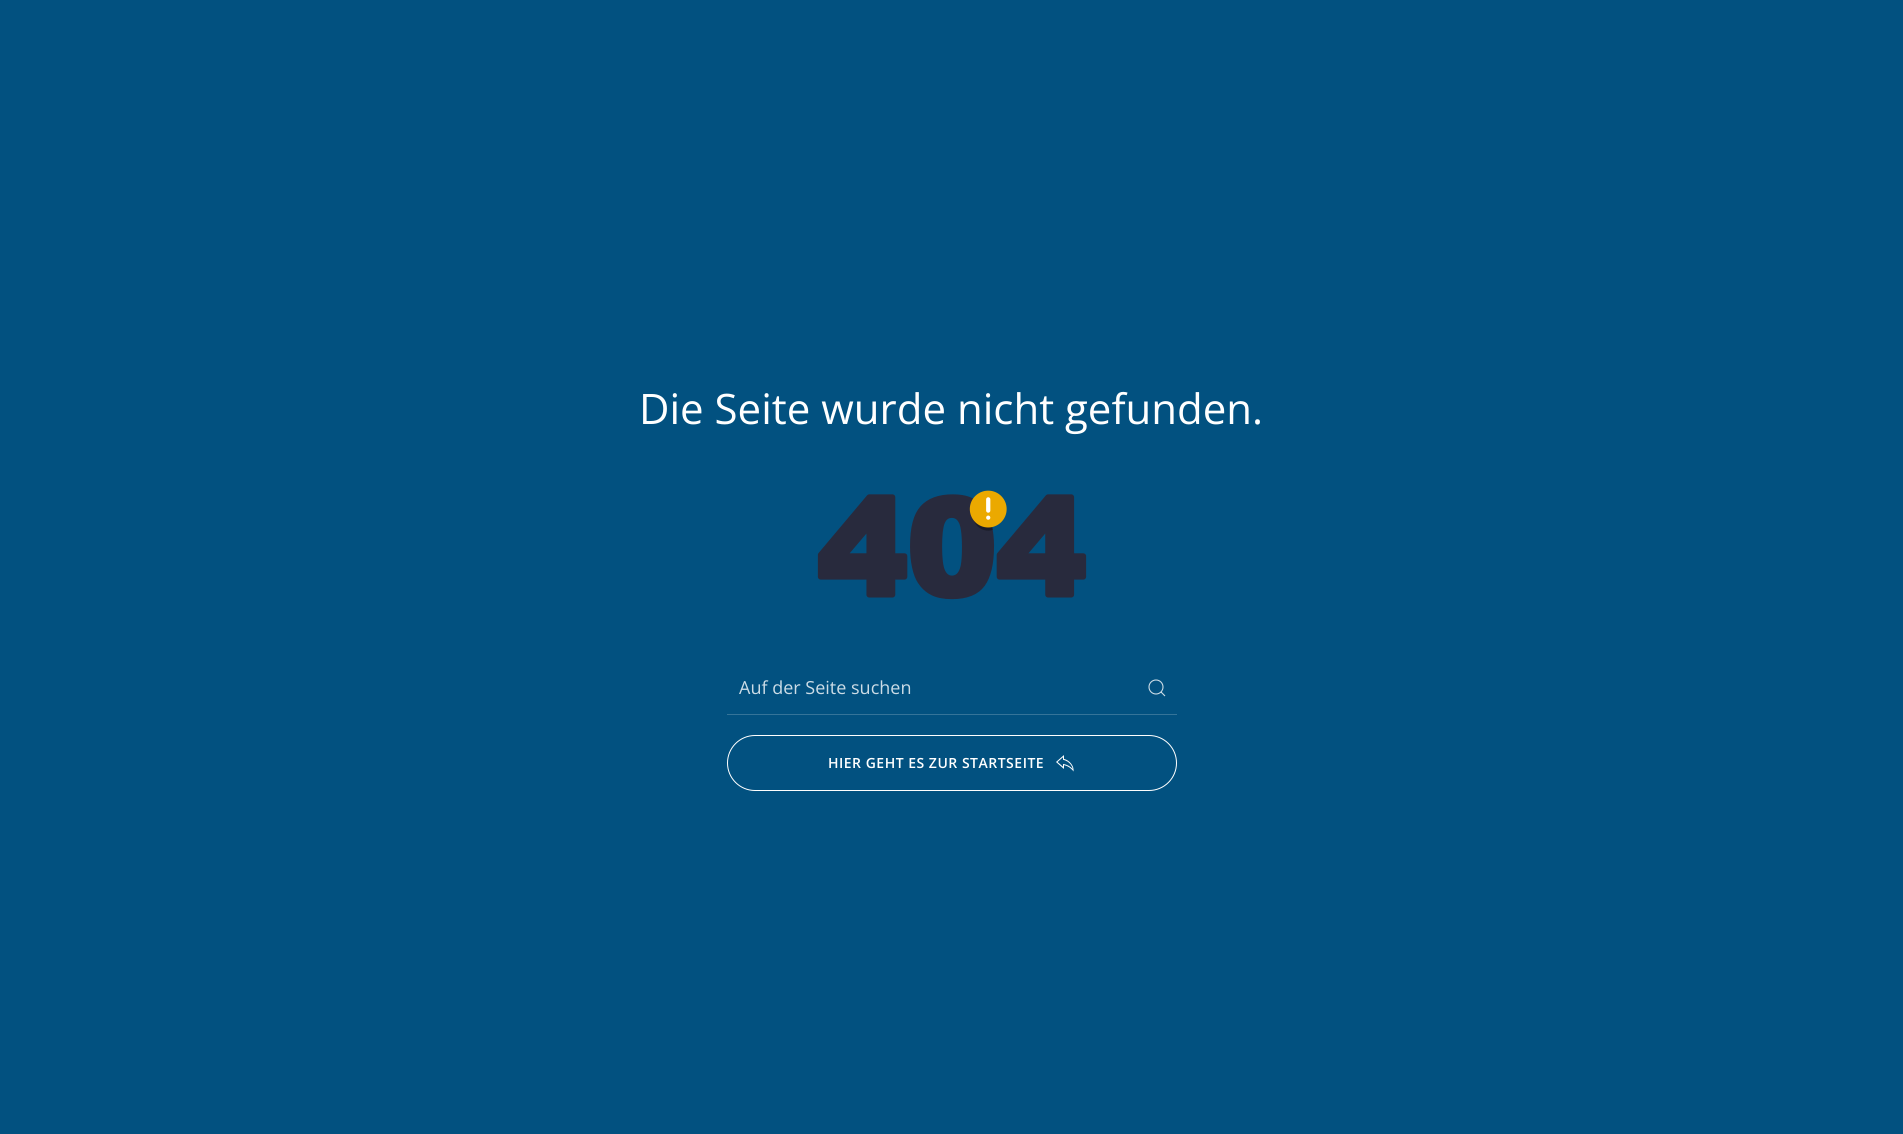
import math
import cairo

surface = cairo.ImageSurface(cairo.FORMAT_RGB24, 1903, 1134)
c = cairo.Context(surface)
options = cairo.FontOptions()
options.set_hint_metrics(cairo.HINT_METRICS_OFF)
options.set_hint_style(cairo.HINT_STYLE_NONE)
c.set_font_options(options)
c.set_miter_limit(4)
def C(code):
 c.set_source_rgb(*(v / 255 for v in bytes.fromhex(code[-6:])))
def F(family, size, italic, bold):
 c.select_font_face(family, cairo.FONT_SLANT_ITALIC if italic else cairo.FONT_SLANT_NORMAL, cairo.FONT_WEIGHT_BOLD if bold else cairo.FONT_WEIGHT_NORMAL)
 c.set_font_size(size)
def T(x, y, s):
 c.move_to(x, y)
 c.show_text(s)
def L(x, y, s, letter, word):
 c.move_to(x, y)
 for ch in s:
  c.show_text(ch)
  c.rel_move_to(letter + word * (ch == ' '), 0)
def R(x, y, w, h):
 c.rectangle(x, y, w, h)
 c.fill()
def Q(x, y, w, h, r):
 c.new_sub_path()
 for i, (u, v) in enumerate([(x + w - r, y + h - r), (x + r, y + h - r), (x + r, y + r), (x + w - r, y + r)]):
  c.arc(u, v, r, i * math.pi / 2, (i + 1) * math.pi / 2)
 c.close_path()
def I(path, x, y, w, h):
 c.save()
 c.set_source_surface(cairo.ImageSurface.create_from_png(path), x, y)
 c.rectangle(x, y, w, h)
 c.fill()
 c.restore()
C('025180')
c.paint()
F('Open Sans',42,0,0)
C('ffffff')
T(639,424,'Die Seite wurde nicht gefunden.')
I('1.png',817,490,270,110)
C('357499')
R(727,714,450,1)
F('Open Sans',18,0,0)
C('ccdce6')
T(739,694,'Auf der Seite suchen')
c.new_path()
c.arc(1156,687,7,0,2 * math.pi)
c.set_line_width(1.1)
c.stroke()
c.new_path()
c.move_to(1161,692)
c.line_to(1165,696)
c.close_path()
c.set_source_rgba(1,1,1,0.8)
c.stroke()
Q(727.5,735.5,449,55,27.5)
C('ffffff')
c.set_line_width(1)
c.stroke()
F('Open Sans SemiBold',14,0,0)
L(828,768,'HIER GEHT ES ZUR STARTSEITE',.5,0)
I('2.png',1056,755,18,17)
surface.write_to_png('o.png')
